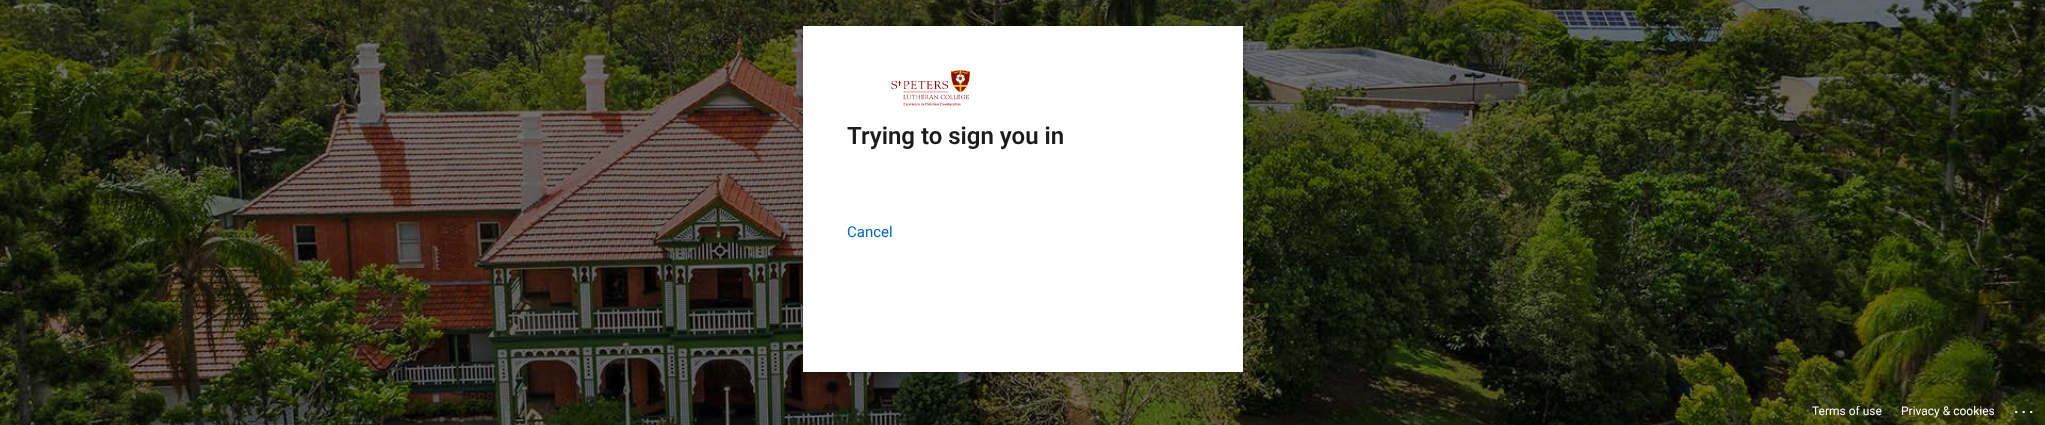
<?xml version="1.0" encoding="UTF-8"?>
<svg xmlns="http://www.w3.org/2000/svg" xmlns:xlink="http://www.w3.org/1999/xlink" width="2045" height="425">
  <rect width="100%" height="100%" fill="#ffffff" />
  <image x="0" y="0" width="2045" height="425" xlink:href="image1.png" />
  <rect x="803" y="28" width="440" height="346" fill="#000000" fill-opacity="0.2" filter="blur(3px)" />
  <rect x="803" y="26" width="440" height="346" fill="#ffffff" />
  <image x="891" y="70" width="79" height="36" xlink:href="image2.png" />
  <text x="847" y="144" style="font-family: Roboto; font-size: 24px; font-weight: 600; fill: #1b1b1b">Trying to sign you in</text>
  <text x="847" y="237" style="font-family: Roboto; font-size: 15px; fill: #0067b8">Cancel</text>
  <text x="1812" y="415" style="font-family: Roboto; font-size: 12px; fill: #ffffff">Terms of use</text>
  <text x="1901" y="415" style="font-family: Roboto; font-size: 12px; fill: #ffffff">Privacy &amp; cookies</text>
  <text x="2014" y="413" style="font-family: Roboto; font-size: 16px; font-weight: 600; letter-spacing: 3px; fill: #ffffff">...</text>
</svg>
